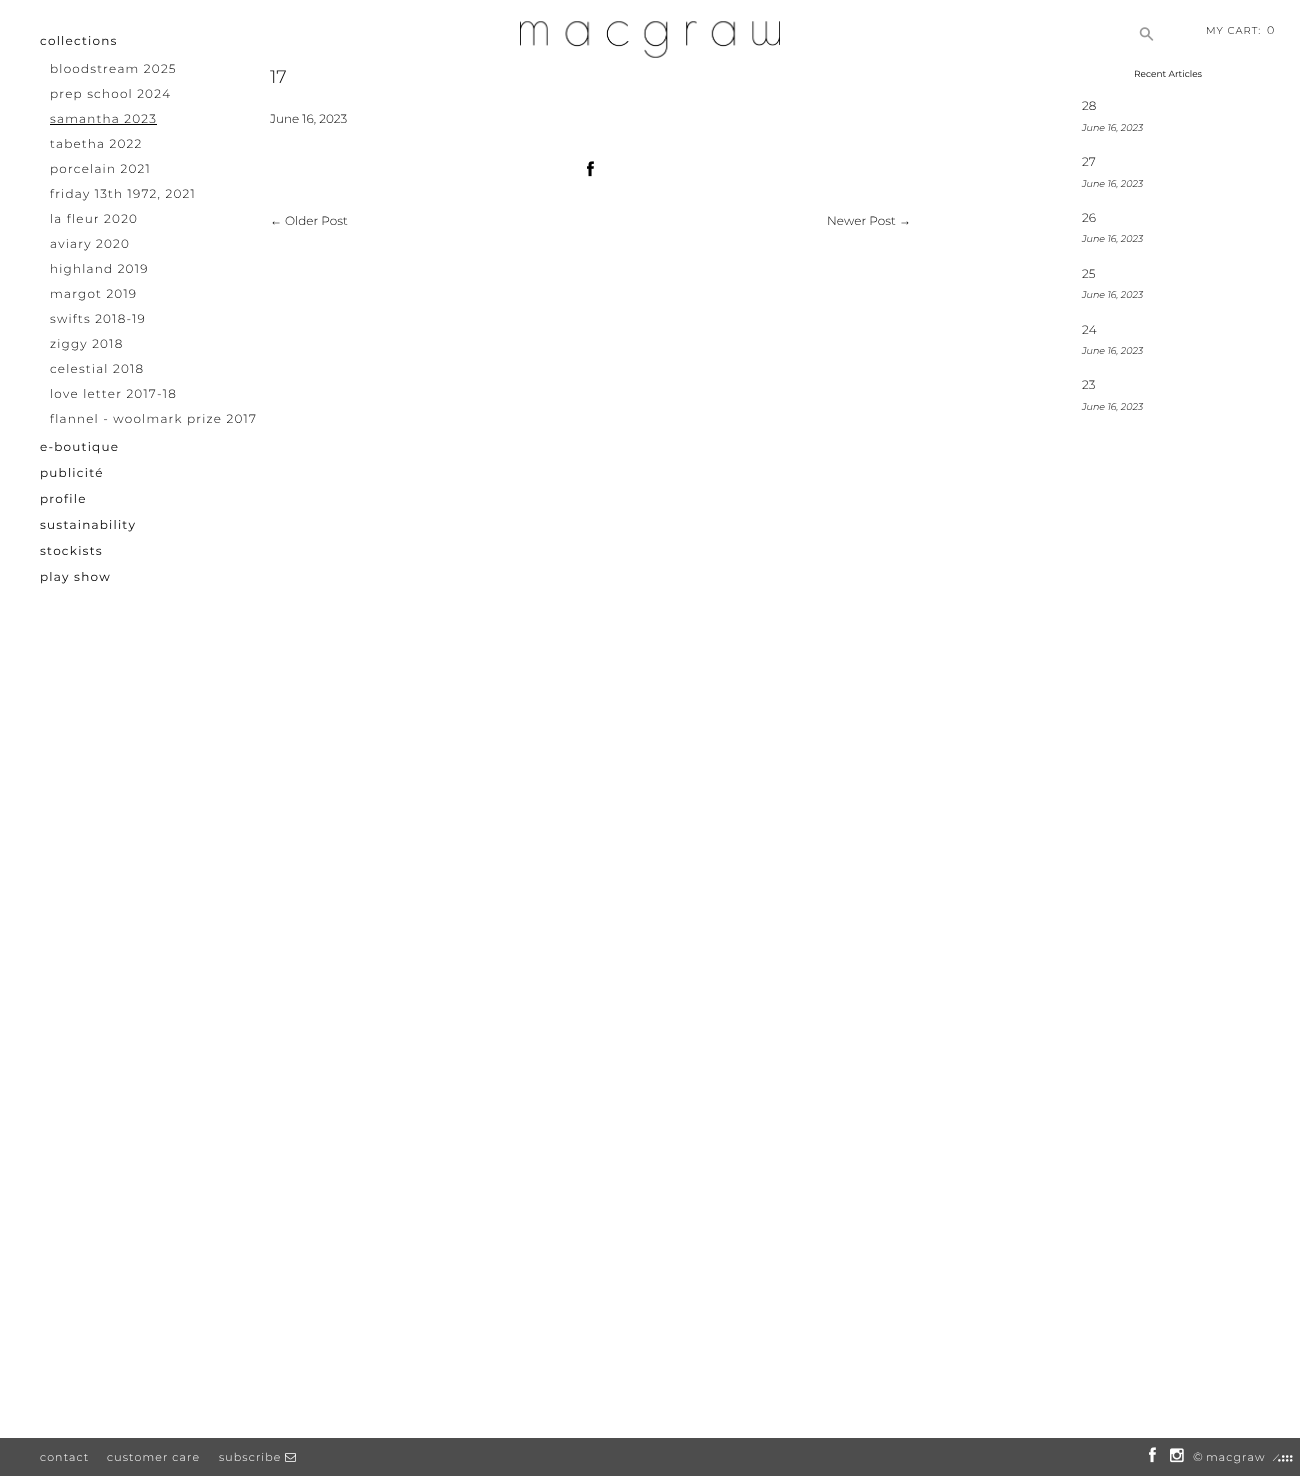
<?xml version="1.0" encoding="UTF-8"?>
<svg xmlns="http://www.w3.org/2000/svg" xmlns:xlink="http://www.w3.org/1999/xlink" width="1300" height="1476">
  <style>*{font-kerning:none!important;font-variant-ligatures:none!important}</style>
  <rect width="100%" height="100%" fill="#ffffff" />
  <image x="520" y="21" width="260" height="37" xlink:href="image1.png" />
  <image x="1139" y="27" width="15" height="14" xlink:href="image2.png" />
  <rect x="50" y="124" width="107" height="1" fill="#000000" />
  <image x="587" y="161" width="7" height="16" xlink:href="image3.png" />
  <rect y="1438" width="1300" height="38" fill="#4d4d4d" />
  <image x="285" y="1453" width="11" height="9" xlink:href="image4.png" />
  <image x="1149" y="1447" width="7" height="16" xlink:href="image5.png" />
  <image x="1170" y="1448" width="14" height="15" xlink:href="image6.png" />
  <text x="1206" y="34" style="font-family: Montserrat; font-size: 10px; font-weight: 300; letter-spacing: 1px; fill: #000000">MY CART:</text>
  <text x="1267" y="34" style="font-family: Montserrat; font-size: 11px; font-weight: 300; letter-spacing: 1px; fill: #000000">0</text>
  <text x="40" y="45" style="font-family: Montserrat; font-size: 12px; letter-spacing: 1.2px; fill: #000000">collections</text>
  <text x="50" y="73" style="font-family: Montserrat; font-size: 12px; font-weight: 300; letter-spacing: 1.2px; fill: #000000">bloodstream 2025</text>
  <text x="50" y="98" style="font-family: Montserrat; font-size: 12px; font-weight: 300; letter-spacing: 1.2px; fill: #000000">prep school 2024</text>
  <text x="50" y="123" style="font-family: Montserrat; font-size: 12px; font-weight: 300; letter-spacing: 1.2px; fill: #000000">samantha 2023</text>
  <text x="50" y="148" style="font-family: Montserrat; font-size: 12px; font-weight: 300; letter-spacing: 1.2px; fill: #000000">tabetha 2022</text>
  <text x="50" y="173" style="font-family: Montserrat; font-size: 12px; font-weight: 300; letter-spacing: 1.2px; fill: #000000">porcelain 2021</text>
  <text x="50" y="198" style="font-family: Montserrat; font-size: 12px; font-weight: 300; letter-spacing: 1.2px; fill: #000000">friday 13th 1972, 2021</text>
  <text x="50" y="223" style="font-family: Montserrat; font-size: 12px; font-weight: 300; letter-spacing: 1.2px; fill: #000000">la fleur 2020</text>
  <text x="50" y="248" style="font-family: Montserrat; font-size: 12px; font-weight: 300; letter-spacing: 1.2px; fill: #000000">aviary 2020</text>
  <text x="50" y="273" style="font-family: Montserrat; font-size: 12px; font-weight: 300; letter-spacing: 1.2px; fill: #000000">highland 2019</text>
  <text x="50" y="298" style="font-family: Montserrat; font-size: 12px; font-weight: 300; letter-spacing: 1.2px; fill: #000000">margot 2019</text>
  <text x="50" y="323" style="font-family: Montserrat; font-size: 12px; font-weight: 300; letter-spacing: 1.2px; fill: #000000">swifts 2018-19</text>
  <text x="50" y="348" style="font-family: Montserrat; font-size: 12px; font-weight: 300; letter-spacing: 1.2px; fill: #000000">ziggy 2018</text>
  <text x="50" y="373" style="font-family: Montserrat; font-size: 12px; font-weight: 300; letter-spacing: 1.2px; fill: #000000">celestial 2018</text>
  <text x="50" y="398" style="font-family: Montserrat; font-size: 12px; font-weight: 300; letter-spacing: 1.2px; fill: #000000">love letter 2017-18</text>
  <text x="50" y="423" style="font-family: Montserrat; font-size: 12px; font-weight: 300; letter-spacing: 1.2px; fill: #000000">flannel - woolmark prize 2017</text>
  <text x="40" y="451" style="font-family: Montserrat; font-size: 12px; letter-spacing: 1.2px; fill: #000000">e-boutique</text>
  <text x="40" y="477" style="font-family: Montserrat; font-size: 12px; letter-spacing: 1.2px; fill: #000000">publicité</text>
  <text x="40" y="503" style="font-family: Montserrat; font-size: 12px; letter-spacing: 1.2px; fill: #000000">profile</text>
  <text x="40" y="529" style="font-family: Montserrat; font-size: 12px; letter-spacing: 1.2px; fill: #000000">sustainability</text>
  <text x="40" y="555" style="font-family: Montserrat; font-size: 12px; letter-spacing: 1.2px; fill: #000000">stockists</text>
  <text x="40" y="581" style="font-family: Montserrat; font-size: 12px; letter-spacing: 1.2px; fill: #000000">play show</text>
  <text x="270" y="83" style="font-family: Montserrat; font-size: 18px; font-weight: 300; fill: #000000">17</text>
  <text x="270" y="123" style="font-family: Montserrat; font-size: 12px; font-weight: 300; fill: #000000">June 16, 2023</text>
  <text x="270" y="225" style="font-family: Liberation Sans; font-size: 12px; fill: #000000">←</text>
  <text x="285" y="225" style="font-family: Montserrat; font-size: 12px; font-weight: 300; fill: #000000">Older Post</text>
  <text x="827" y="225" style="font-family: Montserrat; font-size: 12px; font-weight: 300; fill: #000000">Newer Post</text>
  <text x="899" y="225" style="font-family: Liberation Sans; font-size: 12px; fill: #000000">→</text>
  <text x="1134" y="77" style="font-family: Montserrat; font-size: 9px; fill: #000000">Recent Articles</text>
  <text x="1082" y="110" style="font-family: Montserrat; font-size: 12px; font-weight: 300; fill: #000000">28</text>
  <text x="1082" y="131" style="font-family: Montserrat; font-size: 9.5px; font-weight: 300; font-style: italic; fill: #000000">June 16, 2023</text>
  <text x="1082" y="166" style="font-family: Montserrat; font-size: 12px; font-weight: 300; fill: #000000">27</text>
  <text x="1082" y="187" style="font-family: Montserrat; font-size: 9.5px; font-weight: 300; font-style: italic; fill: #000000">June 16, 2023</text>
  <text x="1082" y="222" style="font-family: Montserrat; font-size: 12px; font-weight: 300; fill: #000000">26</text>
  <text x="1082" y="242" style="font-family: Montserrat; font-size: 9.5px; font-weight: 300; font-style: italic; fill: #000000">June 16, 2023</text>
  <text x="1082" y="278" style="font-family: Montserrat; font-size: 12px; font-weight: 300; fill: #000000">25</text>
  <text x="1082" y="298" style="font-family: Montserrat; font-size: 9.5px; font-weight: 300; font-style: italic; fill: #000000">June 16, 2023</text>
  <text x="1082" y="334" style="font-family: Montserrat; font-size: 12px; font-weight: 300; fill: #000000">24</text>
  <text x="1082" y="354" style="font-family: Montserrat; font-size: 9.5px; font-weight: 300; font-style: italic; fill: #000000">June 16, 2023</text>
  <text x="1082" y="389" style="font-family: Montserrat; font-size: 12px; font-weight: 300; fill: #000000">23</text>
  <text x="1082" y="410" style="font-family: Montserrat; font-size: 9.5px; font-weight: 300; font-style: italic; fill: #000000">June 16, 2023</text>
  <text x="40" y="1461" style="font-family: Montserrat; font-size: 11px; font-weight: 300; letter-spacing: 1.1px; fill: #ffffff">contact</text>
  <text x="107" y="1461" style="font-family: Montserrat; font-size: 11px; font-weight: 300; letter-spacing: 1.1px; fill: #ffffff">customer care</text>
  <text x="219" y="1461" style="font-family: Montserrat; font-size: 11px; font-weight: 300; letter-spacing: 1.1px; fill: #ffffff">subscribe</text>
  <text x="1193" y="1461" style="font-family: Montserrat; font-size: 12px; font-weight: 300; fill: #ffffff">©</text>
  <text x="1206" y="1461" style="font-family: Montserrat; font-size: 11px; font-weight: 300; letter-spacing: 1.1px; fill: #ffffff">macgraw</text>
  <text x="1269" y="1465" style="font-family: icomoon; font-size: 16px; letter-spacing: 2px; fill: #ffffff">🎂</text>
</svg>
